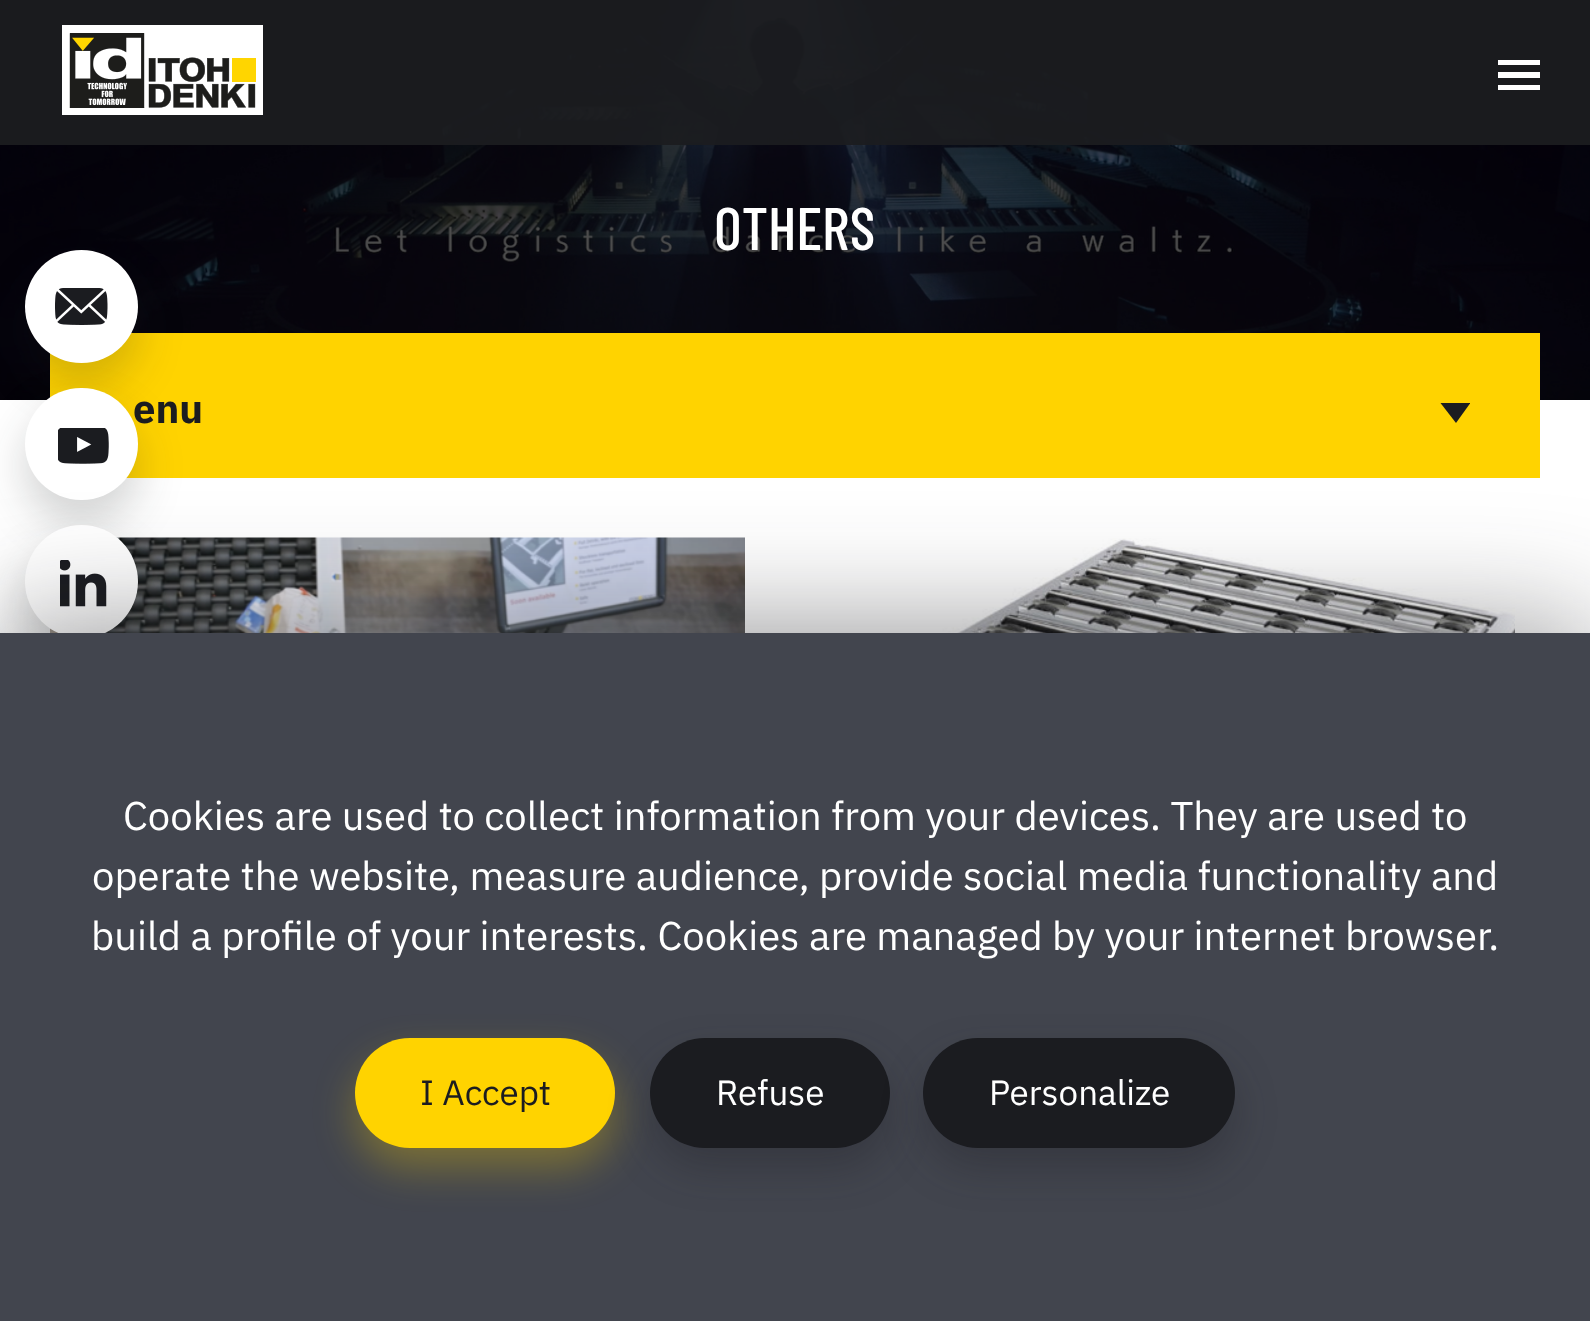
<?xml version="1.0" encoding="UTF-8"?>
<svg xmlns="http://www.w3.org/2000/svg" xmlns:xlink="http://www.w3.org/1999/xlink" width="1590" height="1321">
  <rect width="100%" height="100%" fill="#ffffff" />
  <image x="0" y="0" width="1590" height="400" xlink:href="image5.png" />
  <rect width="1590" height="145" fill="#1b1c20" fill-opacity="0.95" />
  <image x="62" y="25" width="201" height="90" xlink:href="image1.png" />
  <path d="M 1540 85 v 5 h -42 v -5 z m 0 -13 v 6 h -42 v -6 z m 0 -12 v 5 h -42 v -5 z" fill="#ffffff" fill-rule="evenodd" />
  <rect x="50" y="333" width="1490" height="145" fill="#ffd300" />
  <rect x="25" y="273" width="113" height="112" rx="56" fill="#1b1c20" fill-opacity="0.2" filter="blur(22.5px)" />
  <circle cx="81.5" cy="306.5" r="56.5" fill="#ffffff" />
  <image x="55" y="288" width="53" height="37" xlink:href="image2.png" />
  <image x="50" y="537" width="695" height="96" xlink:href="image6.png" />
  <rect x="25" y="410" width="113" height="113" rx="56.5" fill="#1b1c20" fill-opacity="0.2" filter="blur(22.5px)" />
  <path d="M 1456 423 l -15.5 -20 h 29.5 v 0.5 z" fill="#1b1c20" />
  <image x="820" y="538" width="695" height="95" xlink:href="image7.png" />
  <text x="714" y="250" style="font-family: Barlow Condensed; font-size: 60px; font-weight: 500; fill: #ffffff">OTHERS</text>
  <text x="133" y="423" style="font-family: IBM Plex Sans; font-size: 40px; font-weight: bold; fill: #1b1c20">enu</text>
  <rect x="25" y="388" width="113" height="112" rx="56" fill="#ffffff" />
  <rect x="25" y="548" width="113" height="112" rx="56" fill="#1b1c20" fill-opacity="0.2" filter="blur(22.5px)" />
  <circle cx="81.5" cy="581.5" r="56.5" fill="#ffffff" />
  <image x="60" y="560" width="47" height="47" xlink:href="image4.png" />
  <image x="58" y="428" width="51" height="36" xlink:href="image3.png" />
  <rect y="633" width="1590" height="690" fill="#1b1c20" fill-opacity="0.5" filter="blur(62.5px)" />
  <rect y="633" width="1590" height="688" fill="#42454e" />
  <text x="123" y="830" style="font-family: IBM Plex Sans; font-size: 40px; fill: #ffffff">Cookies are used to collect information from your devices. They are used to</text>
  <text x="92" y="890" style="font-family: IBM Plex Sans; font-size: 40px; fill: #ffffff">operate the website, measure audience, provide social media functionality and</text>
  <text x="91" y="950" style="font-family: IBM Plex Sans; font-size: 40px; fill: #ffffff">build a profile of your interests. Cookies are managed by your internet browser.</text>
  <rect x="355" y="1058" width="260" height="110" rx="55" fill="#ffd300" fill-opacity="0.3" filter="blur(20px)" />
  <rect x="355" y="1038" width="260" height="110" rx="55" fill="#ffd300" />
  <text x="420" y="1105" style="font-family: IBM Plex Sans; font-size: 35px; fill: #1b1c20">I Accept</text>
  <rect x="650" y="1058" width="240" height="110" rx="55" fill="#1b1c20" fill-opacity="0.3" filter="blur(20px)" />
  <rect x="650" y="1038" width="240" height="110" rx="55" fill="#1b1c20" />
  <text x="716" y="1105" style="font-family: IBM Plex Sans; font-size: 35px; fill: #ffffff">Refuse</text>
  <rect x="923" y="1058" width="312" height="110" rx="55" fill="#1b1c20" fill-opacity="0.3" filter="blur(20px)" />
  <rect x="923" y="1038" width="312" height="110" rx="55" fill="#1b1c20" />
  <text x="989" y="1105" style="font-family: IBM Plex Sans; font-size: 35px; fill: #ffffff">Personalize</text>
</svg>
